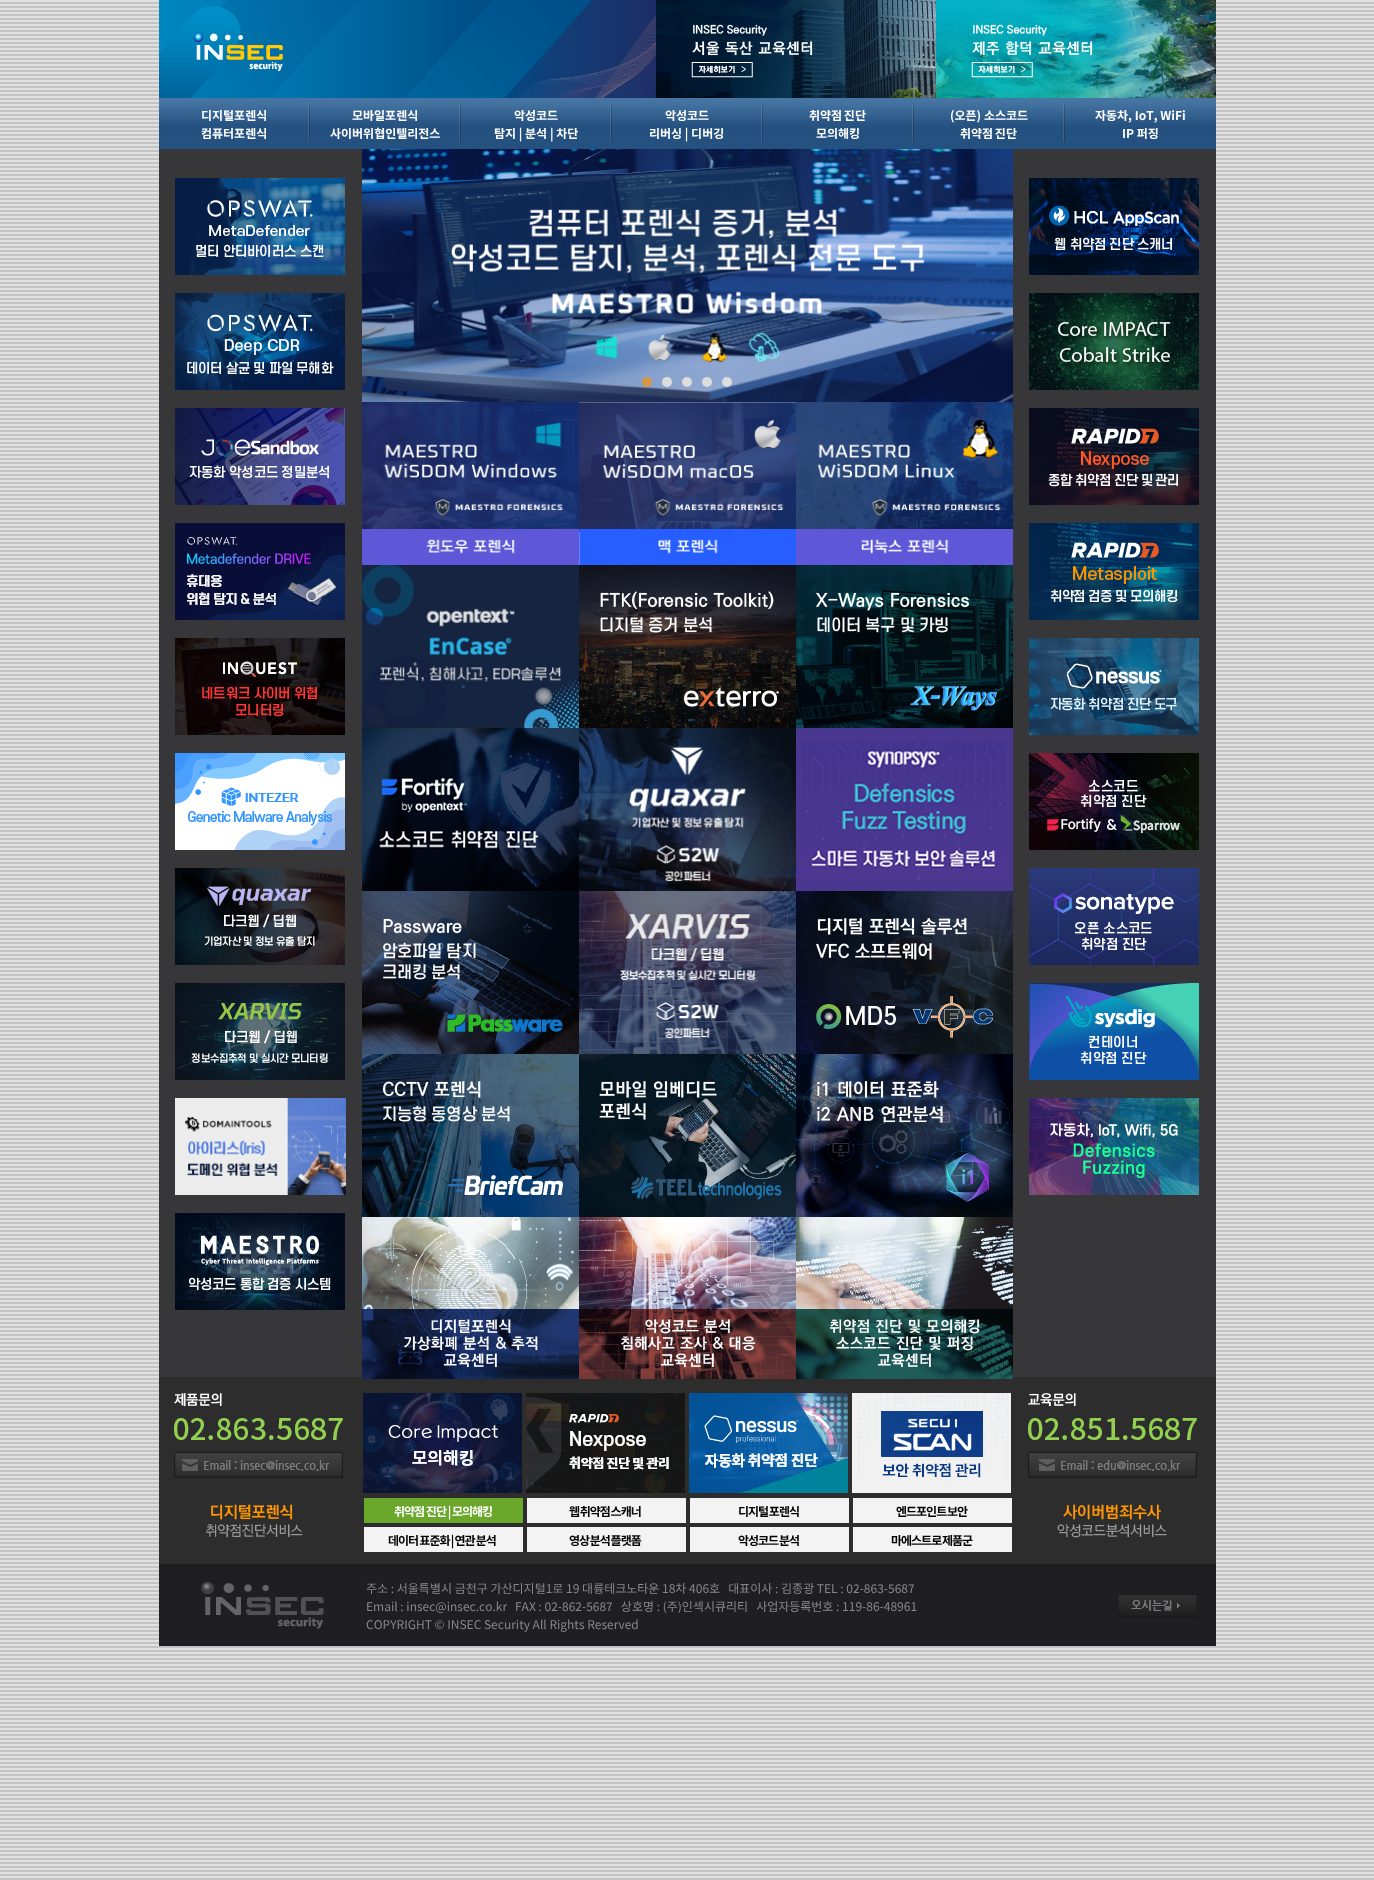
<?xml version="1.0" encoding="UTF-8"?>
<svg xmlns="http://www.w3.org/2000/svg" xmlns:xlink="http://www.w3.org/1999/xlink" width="1374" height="1880">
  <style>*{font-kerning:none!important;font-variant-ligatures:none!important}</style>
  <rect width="100%" height="100%" fill="#ffffff" />
  <image x="0" y="0" width="1374" height="1880" xlink:href="image1.png" />
  <image x="159" y="0" width="1057" height="98" xlink:href="image2.png" />
  <image x="159" y="98" width="1057" height="51" xlink:href="image3.png" />
  <image x="308" y="105" width="2" height="37" xlink:href="image4.png" />
  <image x="459" y="105" width="2" height="37" xlink:href="image4.png" />
  <image x="610" y="105" width="2" height="37" xlink:href="image4.png" />
  <image x="761" y="105" width="2" height="37" xlink:href="image4.png" />
  <image x="912" y="105" width="2" height="37" xlink:href="image4.png" />
  <image x="1063" y="105" width="2" height="37" xlink:href="image4.png" />
  <image x="159" y="149" width="1057" height="1228" xlink:href="image5.png" />
  <image x="175" y="178" width="170" height="97" xlink:href="image6.png" />
  <image x="175" y="293" width="170" height="97" xlink:href="image7.png" />
  <image x="175" y="408" width="170" height="97" xlink:href="image8.png" />
  <image x="175" y="523" width="170" height="97" xlink:href="image9.png" />
  <image x="175" y="638" width="170" height="97" xlink:href="image10.png" />
  <image x="175" y="753" width="170" height="97" xlink:href="image11.png" />
  <image x="175" y="868" width="170" height="97" xlink:href="image12.png" />
  <image x="175" y="983" width="170" height="97" xlink:href="image13.png" />
  <image x="175" y="1098" width="171" height="97" xlink:href="image14.png" />
  <image x="175" y="1213" width="170" height="97" xlink:href="image15.png" />
  <image x="159" y="1377" width="203" height="187" xlink:href="image16.png" />
  <image x="362" y="149" width="651" height="253" xlink:href="image17.png" />
  <circle cx="647" cy="382" r="5" fill="#d69746" />
  <circle cx="667" cy="382" r="5" fill="#dddddd" />
  <circle cx="687" cy="382" r="5" fill="#dddddd" />
  <circle cx="707" cy="382" r="5" fill="#dddddd" />
  <circle cx="727" cy="382" r="5" fill="#dddddd" />
  <image x="362" y="402" width="217" height="163" xlink:href="image18.png" />
  <image x="579" y="402" width="217" height="163" xlink:href="image19.png" />
  <image x="796" y="402" width="217" height="163" xlink:href="image20.png" />
  <image x="362" y="565" width="217" height="163" xlink:href="image21.png" />
  <image x="579" y="565" width="217" height="163" xlink:href="image22.png" />
  <image x="796" y="565" width="217" height="163" xlink:href="image23.png" />
  <image x="362" y="728" width="217" height="163" xlink:href="image24.png" />
  <image x="579" y="728" width="217" height="163" xlink:href="image25.png" />
  <image x="796" y="728" width="217" height="163" xlink:href="image26.png" />
  <image x="362" y="891" width="217" height="163" xlink:href="image27.png" />
  <image x="579" y="891" width="217" height="163" xlink:href="image28.png" />
  <image x="796" y="891" width="217" height="163" xlink:href="image29.png" />
  <image x="362" y="1054" width="217" height="163" xlink:href="image30.png" />
  <image x="579" y="1054" width="217" height="163" xlink:href="image31.png" />
  <image x="796" y="1054" width="217" height="163" xlink:href="image32.png" />
  <image x="362" y="1217" width="217" height="162" xlink:href="image33.png" />
  <image x="579" y="1217" width="217" height="162" xlink:href="image34.png" />
  <image x="796" y="1217" width="217" height="162" xlink:href="image35.png" />
  <rect x="362" y="1379" width="651" height="185" fill="#2d2d2d" />
  <image x="363" y="1393" width="159" height="100" xlink:href="image36.png" />
  <image x="526" y="1393" width="159" height="100" xlink:href="image37.png" />
  <image x="689" y="1393" width="159" height="100" xlink:href="image38.png" />
  <image x="852" y="1393" width="159" height="100" xlink:href="image39.png" />
  <rect x="364" y="1498" width="159" height="25" fill="#6ba72b" />
  <rect x="527" y="1498" width="159" height="25" fill="#f3f3f3" />
  <rect x="690" y="1498" width="159" height="25" fill="#f3f3f3" />
  <rect x="853" y="1498" width="159" height="25" fill="#f3f3f3" />
  <rect x="364" y="1527" width="159" height="25" fill="#f3f3f3" />
  <rect x="527" y="1527" width="159" height="25" fill="#f3f3f3" />
  <rect x="690" y="1527" width="159" height="25" fill="#f3f3f3" />
  <rect x="853" y="1527" width="159" height="25" fill="#f3f3f3" />
  <image x="1029" y="178" width="170" height="97" xlink:href="image40.png" />
  <image x="1029" y="293" width="170" height="97" xlink:href="image41.png" />
  <image x="1029" y="408" width="170" height="97" xlink:href="image42.png" />
  <image x="1029" y="523" width="170" height="97" xlink:href="image43.png" />
  <image x="1029" y="638" width="170" height="97" xlink:href="image44.png" />
  <image x="1029" y="753" width="170" height="97" xlink:href="image45.png" />
  <image x="1029" y="868" width="170" height="97" xlink:href="image46.png" />
  <image x="1029" y="983" width="170" height="97" xlink:href="image47.png" />
  <image x="1029" y="1098" width="170" height="97" xlink:href="image48.png" />
  <image x="1013" y="1377" width="203" height="187" xlink:href="image49.png" />
  <rect x="159" y="1564" width="1057" height="82" fill="#1f1f21" />
  <image x="201" y="1582" width="123" height="47" xlink:href="image50.png" />
  <image x="1117" y="1594" width="81" height="24" xlink:href="image51.png" />
  <text x="201" y="120" style="font-family: Noto Sans KR; font-size: 12px; font-weight: bold; fill: #ffffff">디지털포렌식</text>
  <text x="201" y="138" style="font-family: Noto Sans KR; font-size: 12px; font-weight: bold; fill: #ffffff">컴퓨터포렌식</text>
  <text x="352" y="120" style="font-family: Noto Sans KR; font-size: 12px; font-weight: bold; fill: #ffffff">모바일포렌식</text>
  <text x="330" y="138" style="font-family: Noto Sans KR; font-size: 12px; font-weight: bold; fill: #ffffff">사이버위협인텔리전스</text>
  <text x="514" y="120" style="font-family: Noto Sans KR; font-size: 12px; font-weight: bold; fill: #ffffff">악성코드</text>
  <text x="494" y="138" style="font-family: Noto Sans KR; font-size: 12px; font-weight: bold; fill: #ffffff">탐지 | 분석 | 차단</text>
  <text x="665" y="120" style="font-family: Noto Sans KR; font-size: 12px; font-weight: bold; fill: #ffffff">악성코드</text>
  <text x="649" y="138" style="font-family: Noto Sans KR; font-size: 12px; font-weight: bold; fill: #ffffff">리버싱 | 디버깅</text>
  <text x="809" y="120" word-spacing="-1" style="font-family: Noto Sans KR; font-size: 12px; font-weight: bold; fill: #ffffff">취약점 진단</text>
  <text x="816" y="138" style="font-family: Noto Sans KR; font-size: 12px; font-weight: bold; fill: #ffffff">모의해킹</text>
  <text x="950" y="120" style="font-family: Noto Sans KR; font-size: 12px; font-weight: bold; fill: #ffffff">(오픈) 소스코드</text>
  <text x="960" y="138" word-spacing="-1" style="font-family: Noto Sans KR; font-size: 12px; font-weight: bold; fill: #ffffff">취약점 진단</text>
  <text x="1095" y="120" style="font-family: Noto Sans KR; font-size: 12px; font-weight: bold; fill: #ffffff">자동차, IoT, WiFi</text>
  <text x="1122" y="138" style="font-family: Noto Sans KR; font-size: 12px; font-weight: bold; fill: #ffffff">IP 퍼징</text>
  <text x="394" y="1516" style="font-family: Noto Sans KR; font-size: 12px; font-weight: bold; letter-spacing: -1px; fill: #ffffff">취약점 진단 | 모의해킹</text>
  <text x="569" y="1516" word-spacing="-1" style="font-family: Noto Sans KR; font-size: 12px; font-weight: bold; letter-spacing: -1px; fill: #000000">웹 취약점 스캐너</text>
  <text x="738" y="1516" word-spacing="-1" style="font-family: Noto Sans KR; font-size: 12px; font-weight: bold; letter-spacing: -1px; fill: #000000">디지털 포렌식</text>
  <text x="896" y="1516" word-spacing="-1" style="font-family: Noto Sans KR; font-size: 12px; font-weight: bold; letter-spacing: -1px; fill: #000000">엔드포인트 보안</text>
  <text x="388" y="1545" word-spacing="-0.5" style="font-family: Noto Sans KR; font-size: 12px; font-weight: bold; letter-spacing: -1px; fill: #000000">데이터 표준화 | 연관 분석</text>
  <text x="569" y="1545" word-spacing="-1" style="font-family: Noto Sans KR; font-size: 12px; font-weight: bold; letter-spacing: -1px; fill: #000000">영상 분석 플랫폼</text>
  <text x="738" y="1545" word-spacing="-1" style="font-family: Noto Sans KR; font-size: 12px; font-weight: bold; letter-spacing: -1px; fill: #000000">악성코드 분석</text>
  <text x="891" y="1545" word-spacing="-1" style="font-family: Noto Sans KR; font-size: 12px; font-weight: bold; letter-spacing: -1px; fill: #000000">마에스트로 제품군</text>
  <text x="366" y="1593" style="font-family: Noto Sans KR; font-size: 12px; fill: #888888" xml:space="preserve">주소 : 서울특별시 금천구 가산디지털1로 19 대륭테크노타운 18차 406호   대표이사 : 김종광 TEL : 02-863-5687</text>
  <text x="366" y="1611" style="font-family: Noto Sans KR; font-size: 12px; fill: #888888">Email : insec@insec.co.kr</text>
  <text x="515" y="1611" style="font-family: Noto Sans KR; font-size: 12px; fill: #888888" xml:space="preserve">FAX : 02-862-5687   상호명 : (주)인섹시큐리티   사업자등록번호 : 119-86-48961</text>
  <text x="366" y="1629" style="font-family: Noto Sans KR; font-size: 12px; fill: #888888">COPYRIGHT © INSEC Security All Rights Reserved</text>
</svg>
